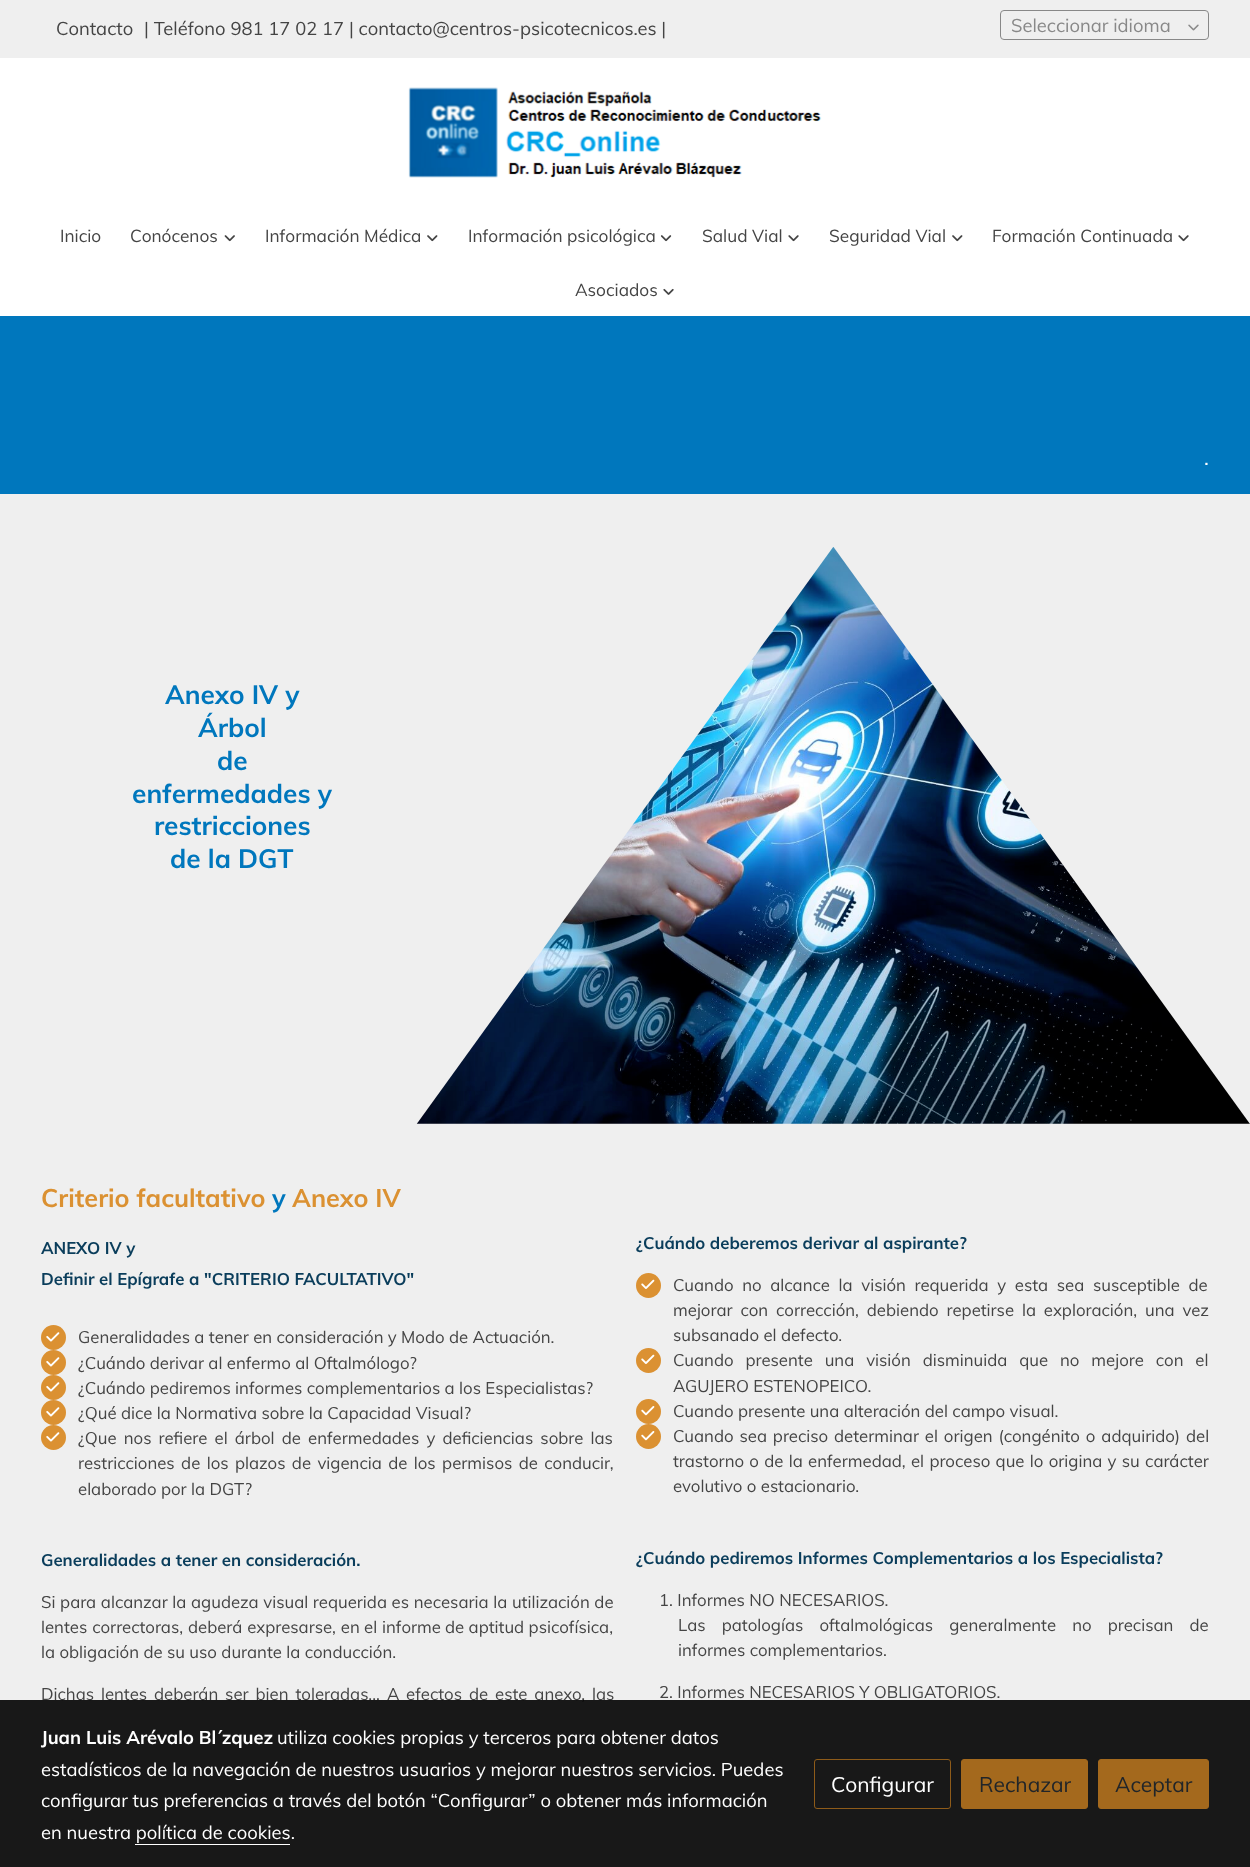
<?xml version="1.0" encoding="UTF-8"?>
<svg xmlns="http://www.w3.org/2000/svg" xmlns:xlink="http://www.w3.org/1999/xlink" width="1250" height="1867">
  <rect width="100%" height="100%" fill="#ffffff" />
  <rect width="1250" height="58" fill="#efefef" />
  <rect x="1000.5" y="10.5" width="208" height="29" rx="3.5" fill="none" stroke="#888888" />
  <image x="1188" y="24" width="11" height="7" xlink:href="image1.png" />
  <image x="408" y="87" width="414" height="91" xlink:href="image2.png" />
  <image x="224" y="235" width="11" height="7" xlink:href="image3.png" />
  <image x="427" y="235" width="11" height="7" xlink:href="image4.png" />
  <image x="660" y="235" width="12" height="7" xlink:href="image5.png" />
  <image x="788" y="235" width="11" height="7" xlink:href="image6.png" />
  <image x="952" y="235" width="11" height="7" xlink:href="image4.png" />
  <image x="1178" y="235" width="11" height="7" xlink:href="image6.png" />
  <image x="663" y="288" width="11" height="7" xlink:href="image7.png" />
  <rect y="316" width="1250" height="178" fill="#0077bd" />
  <rect y="494" width="1250" height="1373" fill="#efefef" />
  <image x="416" y="547" width="834" height="577" xlink:href="image8.png" />
  <circle cx="53.5" cy="1337.5" r="12.5" fill="#db9132" />
  <image x="46" y="1332" width="14" height="10" xlink:href="image9.png" />
  <circle cx="53.5" cy="1362.5" r="12.5" fill="#db9132" />
  <image x="46" y="1357" width="14" height="10" xlink:href="image9.png" />
  <circle cx="53.5" cy="1387.5" r="12.5" fill="#db9132" />
  <image x="46" y="1382" width="14" height="10" xlink:href="image9.png" />
  <circle cx="53.5" cy="1412.5" r="12.5" fill="#db9132" />
  <image x="46" y="1407" width="14" height="10" xlink:href="image9.png" />
  <circle cx="53.5" cy="1437.5" r="12.5" fill="#db9132" />
  <image x="46" y="1432" width="14" height="10" xlink:href="image9.png" />
  <circle cx="648.5" cy="1285.5" r="12.5" fill="#db9132" />
  <image x="641" y="1279" width="14" height="10" xlink:href="image10.png" />
  <circle cx="648.5" cy="1360.5" r="12.5" fill="#db9132" />
  <image x="641" y="1354" width="14" height="10" xlink:href="image10.png" />
  <circle cx="648.5" cy="1411.5" r="12.5" fill="#db9132" />
  <image x="641" y="1406" width="14" height="10" xlink:href="image11.png" />
  <circle cx="648.5" cy="1436.5" r="12.5" fill="#db9132" />
  <image x="641" y="1431" width="14" height="10" xlink:href="image11.png" />
  <text x="56" y="35" style="font-family: Muli; font-size: 18.4px; fill: #444444">Contacto</text>
  <text x="144" y="35" style="font-family: Muli; font-size: 18.4px; fill: #444444">| Teléfono 981 17 02 17 | contacto@centros-psicotecnicos.es |</text>
  <text x="1011" y="32" style="font-family: Muli; font-size: 18.4px; fill: #888888">Seleccionar idioma</text>
  <text x="60" y="242" style="font-family: Muli; font-size: 17.25px; fill: #444444">Inicio</text>
  <text x="130" y="242" style="font-family: Muli; font-size: 17.25px; fill: #444444">Conócenos</text>
  <text x="265" y="242" style="font-family: Muli; font-size: 17.25px; fill: #444444">Información Médica</text>
  <text x="468" y="242" style="font-family: Muli; font-size: 17.25px; fill: #444444">Información psicológica</text>
  <text x="702" y="242" style="font-family: Muli; font-size: 17.25px; fill: #444444">Salud Vial</text>
  <text x="829" y="242" style="font-family: Muli; font-size: 17.25px; fill: #444444">Seguridad Vial</text>
  <text x="992" y="242" style="font-family: Muli; font-size: 17.25px; fill: #444444">Formación Continuada</text>
  <text x="575" y="296" style="font-family: Muli; font-size: 17.25px; fill: #444444">Asociados</text>
  <text x="1204" y="465" style="font-family: Muli; font-size: 21px; fill: #ffffff">.</text>
  <text x="165" y="704" style="font-family: Muli; font-size: 26.25px; font-weight: bold; fill: #0077bd">Anexo IV y</text>
  <text x="198" y="737" style="font-family: Muli; font-size: 26.25px; font-weight: bold; fill: #0077bd">Árbol</text>
  <text x="217" y="770" style="font-family: Muli; font-size: 26.25px; font-weight: bold; fill: #0077bd">de</text>
  <text x="132" y="803" style="font-family: Muli; font-size: 26.25px; font-weight: bold; fill: #0077bd">enfermedades y</text>
  <text x="154" y="835" style="font-family: Muli; font-size: 26.25px; font-weight: bold; fill: #0077bd">restricciones</text>
  <text x="170" y="868" style="font-family: Muli; font-size: 26.25px; font-weight: bold; fill: #0077bd">de la DGT</text>
  <text x="41" y="1207" style="font-family: Muli; font-size: 25.25px; font-weight: bold; fill: #db9132">Criterio facultativo</text>
  <text x="272" y="1207" style="font-family: Muli; font-size: 25.25px; font-weight: bold; fill: #0077bd">y</text>
  <text x="292" y="1207" style="font-family: Muli; font-size: 25.25px; font-weight: bold; fill: #db9132">Anexo IV</text>
  <text x="636" y="1249" style="font-family: Muli; font-size: 16.8px; font-weight: bold; fill: #0a3d5b">¿Cuándo deberemos derivar al aspirante?</text>
  <text x="78" y="1343" style="font-family: Muli; font-size: 16.8px; fill: #444444">Generalidades a tener en consideración y Modo de Actuación.</text>
  <text x="78" y="1369" style="font-family: Muli; font-size: 16.8px; fill: #444444">¿Cuándo derivar al enfermo al Oftalmólogo?</text>
  <text x="78" y="1394" style="font-family: Muli; font-size: 16.8px; fill: #444444">¿Cuándo pediremos informes complementarios a los Especialistas?</text>
  <text x="78" y="1419" style="font-family: Muli; font-size: 16.8px; fill: #444444">¿Qué dice la Normativa sobre la Capacidad Visual?</text>
  <text x="78" y="1444" word-spacing="2.75" style="font-family: Muli; font-size: 16.8px; fill: #444444">¿Que nos refiere el árbol de enfermedades y deficiencias sobre las</text>
  <text x="78" y="1469" word-spacing="2" style="font-family: Muli; font-size: 16.8px; fill: #444444">restricciones de los plazos de vigencia de los permisos de conducir,</text>
  <text x="78" y="1495" style="font-family: Muli; font-size: 16.8px; fill: #444444">elaborado por la DGT?</text>
  <text x="673" y="1291" word-spacing="4.25" style="font-family: Muli; font-size: 16.8px; fill: #444444">Cuando no alcance la visión requerida y esta sea susceptible de</text>
  <text x="673" y="1316" word-spacing="3.5" style="font-family: Muli; font-size: 16.8px; fill: #444444">mejorar con corrección, debiendo repetirse la exploración, una vez</text>
  <text x="673" y="1341" style="font-family: Muli; font-size: 16.8px; fill: #444444">subsanado el defecto.</text>
  <text x="673" y="1366" word-spacing="7.5" style="font-family: Muli; font-size: 16.8px; fill: #444444">Cuando presente una visión disminuida que no mejore con el</text>
  <text x="673" y="1392" style="font-family: Muli; font-size: 16.8px; fill: #444444">AGUJERO ESTENOPEICO.</text>
  <text x="673" y="1417" style="font-family: Muli; font-size: 16.8px; fill: #444444">Cuando presente una alteración del campo visual.</text>
  <text x="673" y="1442" word-spacing="1.5" style="font-family: Muli; font-size: 16.8px; fill: #444444">Cuando sea preciso determinar el origen (congénito o adquirido) del</text>
  <text x="673" y="1467" word-spacing="0.9" style="font-family: Muli; font-size: 16.8px; fill: #444444">trastorno o de la enfermedad, el proceso que lo origina y su carácter</text>
  <text x="673" y="1492" style="font-family: Muli; font-size: 16.8px; fill: #444444">evolutivo o estacionario.</text>
  <text x="41" y="1566" style="font-family: Muli; font-size: 16.8px; font-weight: bold; fill: #0a3d5b">Generalidades a tener en consideración.</text>
  <text x="636" y="1564" style="font-family: Muli; font-size: 16.8px; font-weight: bold; fill: #0a3d5b">¿Cuándo pediremos Informes Complementarios a los Especialista?</text>
  <text x="41" y="1608" word-spacing="0.25" style="font-family: Muli; font-size: 16.8px; fill: #444444">Si para alcanzar la agudeza visual requerida es necesaria la utilización de</text>
  <text x="41" y="1633" word-spacing="0.5" style="font-family: Muli; font-size: 16.8px; fill: #444444">lentes correctoras, deberá expresarse, en</text>
  <text x="364" y="1633" style="font-family: Muli; font-size: 16.8px; fill: #444444">el</text>
  <text x="382" y="1633" style="font-family: Muli; font-size: 16.8px; fill: #444444">informe</text>
  <text x="445" y="1633" style="font-family: Muli; font-size: 16.8px; fill: #444444">de aptitud psicofísica,</text>
  <text x="41" y="1658" style="font-family: Muli; font-size: 16.8px; fill: #444444">la obligación de su uso durante la conducción.</text>
  <text x="659" y="1606" style="font-family: Muli; font-size: 16.8px; fill: #444444">1. Informes NO NECESARIOS.</text>
  <text x="678" y="1631" word-spacing="11.75" style="font-family: Muli; font-size: 16.8px; fill: #444444">Las patologías oftalmológicas generalmente no precisan de</text>
  <text x="678" y="1656" style="font-family: Muli; font-size: 16.8px; fill: #444444">informes complementarios.</text>
  <text x="659" y="1698" style="font-family: Muli; font-size: 16.8px; fill: #444444">2. Informes NECESARIOS Y OBLIGATORIOS.</text>
  <text x="41" y="1700" word-spacing="2.5" style="font-family: Muli; font-size: 16.8px; fill: #444444">Dichas lentes deberán ser bien toleradas... A efectos</text>
  <text x="469" y="1700" word-spacing="2.5" style="font-family: Muli; font-size: 16.8px; fill: #444444">de este anexo,</text>
  <text x="592" y="1700" style="font-family: Muli; font-size: 16.8px; fill: #444444">las</text>
  <text x="41" y="1254" style="font-family: Muli; font-size: 16.8px; font-weight: bold; fill: #0a3d5b">ANEXO IV y</text>
  <text x="41" y="1285" style="font-family: Muli; font-size: 16.8px; font-weight: bold; fill: #0a3d5b">Definir el Epígrafe a "CRITERIO FACULTATIVO"</text>
  <rect y="1700" width="1250" height="167" fill="#000000" fill-opacity="0.9" />
  <text x="41" y="1744" style="font-family: Muli; font-size: 18.4px; font-weight: bold; fill: #ffffff">Juan Luis Arévalo Bl´zquez</text>
  <text x="277" y="1744" style="font-family: Muli; font-size: 18.4px; fill: #ffffff">utiliza cookies propias y terceros para obtener datos</text>
  <text x="41" y="1776" style="font-family: Muli; font-size: 18.4px; fill: #ffffff">estadísticos de la navegación de nuestros usuarios y mejorar nuestros servicios. Puedes</text>
  <text x="41" y="1807" style="font-family: Muli; font-size: 18.4px; fill: #ffffff">configurar tus preferencias a través del botón “Configurar” o obtener más información</text>
  <text x="41" y="1839" style="font-family: Muli; font-size: 18.4px; fill: #ffffff">en nuestra política de cookies.</text>
  <rect x="135" y="1844" width="155" height="1" fill="#ffffff" />
  <rect x="814.5" y="1759.5" width="136" height="49" rx="2.5" fill="none" stroke="#8e5b19" />
  <text x="831" y="1792" style="font-family: Muli; font-size: 21px; fill: #ffffff">Configurar</text>
  <rect x="961.5" y="1759.5" width="126" height="49" rx="2.5" fill="#a4691d" stroke="#a4691d" />
  <text x="979" y="1792" style="font-family: Muli; font-size: 21px; fill: #212529">Rechazar</text>
  <rect x="1098.5" y="1759.5" width="110" height="49" rx="2.5" fill="#a4691d" stroke="#a4691d" />
  <text x="1115" y="1792" style="font-family: Muli; font-size: 21px; fill: #212529">Aceptar</text>
</svg>
